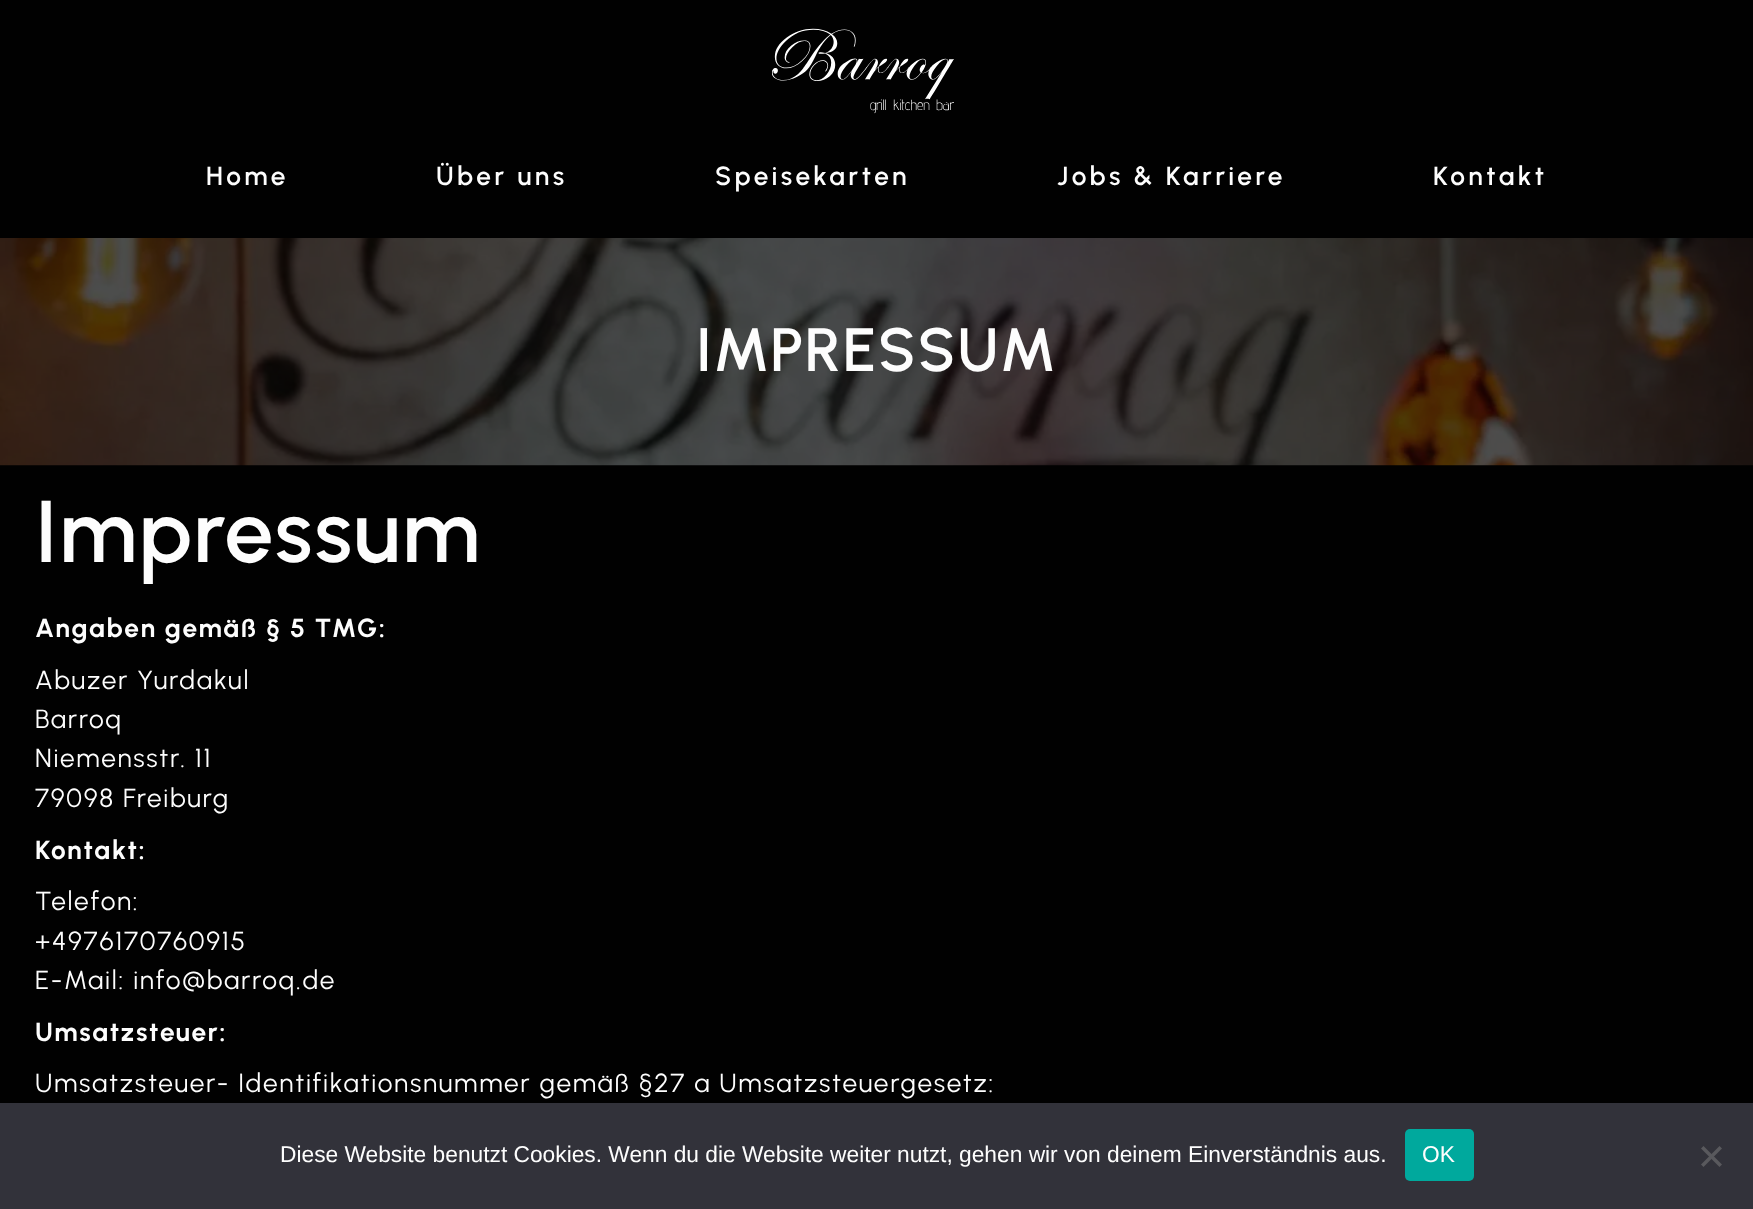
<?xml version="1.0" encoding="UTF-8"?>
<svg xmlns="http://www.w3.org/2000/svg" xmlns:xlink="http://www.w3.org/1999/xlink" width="1753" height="1209">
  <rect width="100%" height="100%" fill="#010101" />
  <image x="772" y="28" width="182" height="86" xlink:href="image1.png" />
  <image x="0" y="238" width="1753" height="228" xlink:href="image2.png" />
  <rect y="1103" width="1753" height="106" fill="#32323a" />
  <rect x="1405" y="1129" width="69" height="52" rx="5" fill="#00a99d" />
  <path d="M 1719.5 1146 l 2.5 2.5 l -18.5 18.5 l -2.5 -2.5 z" fill="#59595d" />
  <path d="M 1701 1148.5 l 2.5 -2.5 l 18.5 18.5 l -2.5 2.5 z" fill="#59595d" />
  <text x="206" y="185" style="font-family: Urbanist; font-size: 26.25px; font-weight: 600; letter-spacing: 3.5px; fill: #fdfdfd">Home</text>
  <text x="436" y="185" style="font-family: Urbanist; font-size: 26.25px; font-weight: 600; letter-spacing: 3.5px; fill: #fdfdfd">Über uns</text>
  <text x="715" y="185" style="font-family: Urbanist; font-size: 26.25px; font-weight: 600; letter-spacing: 3.5px; fill: #fdfdfd">Speisekarten</text>
  <text x="1057" y="185" style="font-family: Urbanist; font-size: 26.25px; font-weight: 600; letter-spacing: 3.5px; fill: #fdfdfd">Jobs &amp; Karriere</text>
  <text x="1433" y="185" style="font-family: Urbanist; font-size: 26.25px; font-weight: 600; letter-spacing: 3.5px; fill: #fdfdfd">Kontakt</text>
  <text x="696" y="371" style="font-family: Urbanist; font-size: 61.25px; font-weight: 600; letter-spacing: 1.75px; fill: #fdfdfd">IMPRESSUM</text>
  <text x="35" y="562" style="font-family: Urbanist; font-size: 87.5px; font-weight: 600; letter-spacing: 1.75px; fill: #fdfdfd">Impressum</text>
  <text x="35" y="637" style="font-family: Urbanist; font-size: 26.25px; font-weight: bold; letter-spacing: 1.75px; fill: #fdfdfd">Angaben gemäß § 5 TMG:</text>
  <text x="35" y="689" style="font-family: Urbanist; font-size: 26.25px; letter-spacing: 1.75px; fill: #fdfdfd">Abuzer Yurdakul</text>
  <text x="35" y="728" style="font-family: Urbanist; font-size: 26.25px; letter-spacing: 1.75px; fill: #fdfdfd">Barroq</text>
  <text x="35" y="767" style="font-family: Urbanist; font-size: 26.25px; letter-spacing: 1.75px; fill: #fdfdfd">Niemensstr. 11</text>
  <text x="35" y="807" style="font-family: Urbanist; font-size: 26.25px; letter-spacing: 1.75px; fill: #fdfdfd">79098 Freiburg</text>
  <text x="35" y="859" style="font-family: Urbanist; font-size: 26.25px; font-weight: bold; letter-spacing: 1.75px; fill: #fdfdfd">Kontakt:</text>
  <text x="35" y="910" style="font-family: Urbanist; font-size: 26.25px; letter-spacing: 1.75px; fill: #fdfdfd">Telefon:</text>
  <text x="35" y="950" style="font-family: Urbanist; font-size: 26.25px; letter-spacing: 1.75px; fill: #fdfdfd">+4976170760915</text>
  <text x="35" y="989" style="font-family: Urbanist; font-size: 26.25px; letter-spacing: 1.75px; fill: #fdfdfd">E-Mail: info@barroq.de</text>
  <text x="35" y="1041" style="font-family: Urbanist; font-size: 26.25px; font-weight: bold; letter-spacing: 1.75px; fill: #fdfdfd">Umsatzsteuer:</text>
  <text x="35" y="1092" style="font-family: Urbanist; font-size: 26.25px; letter-spacing: 1.75px; fill: #fdfdfd">Umsatzsteuer- Identifikationsnummer gemäß §27 a Umsatzsteuergesetz:</text>
  <text x="280" y="1162" style="font-family: Liberation Sans; font-size: 22.75px; fill: #fdfdfd">Diese Website benutzt Cookies. Wenn du die Website weiter nutzt, gehen wir von deinem Einverständnis aus.</text>
  <text x="1422" y="1162" style="font-family: Liberation Sans; font-size: 22.75px; fill: #fdfdfd">OK</text>
</svg>
